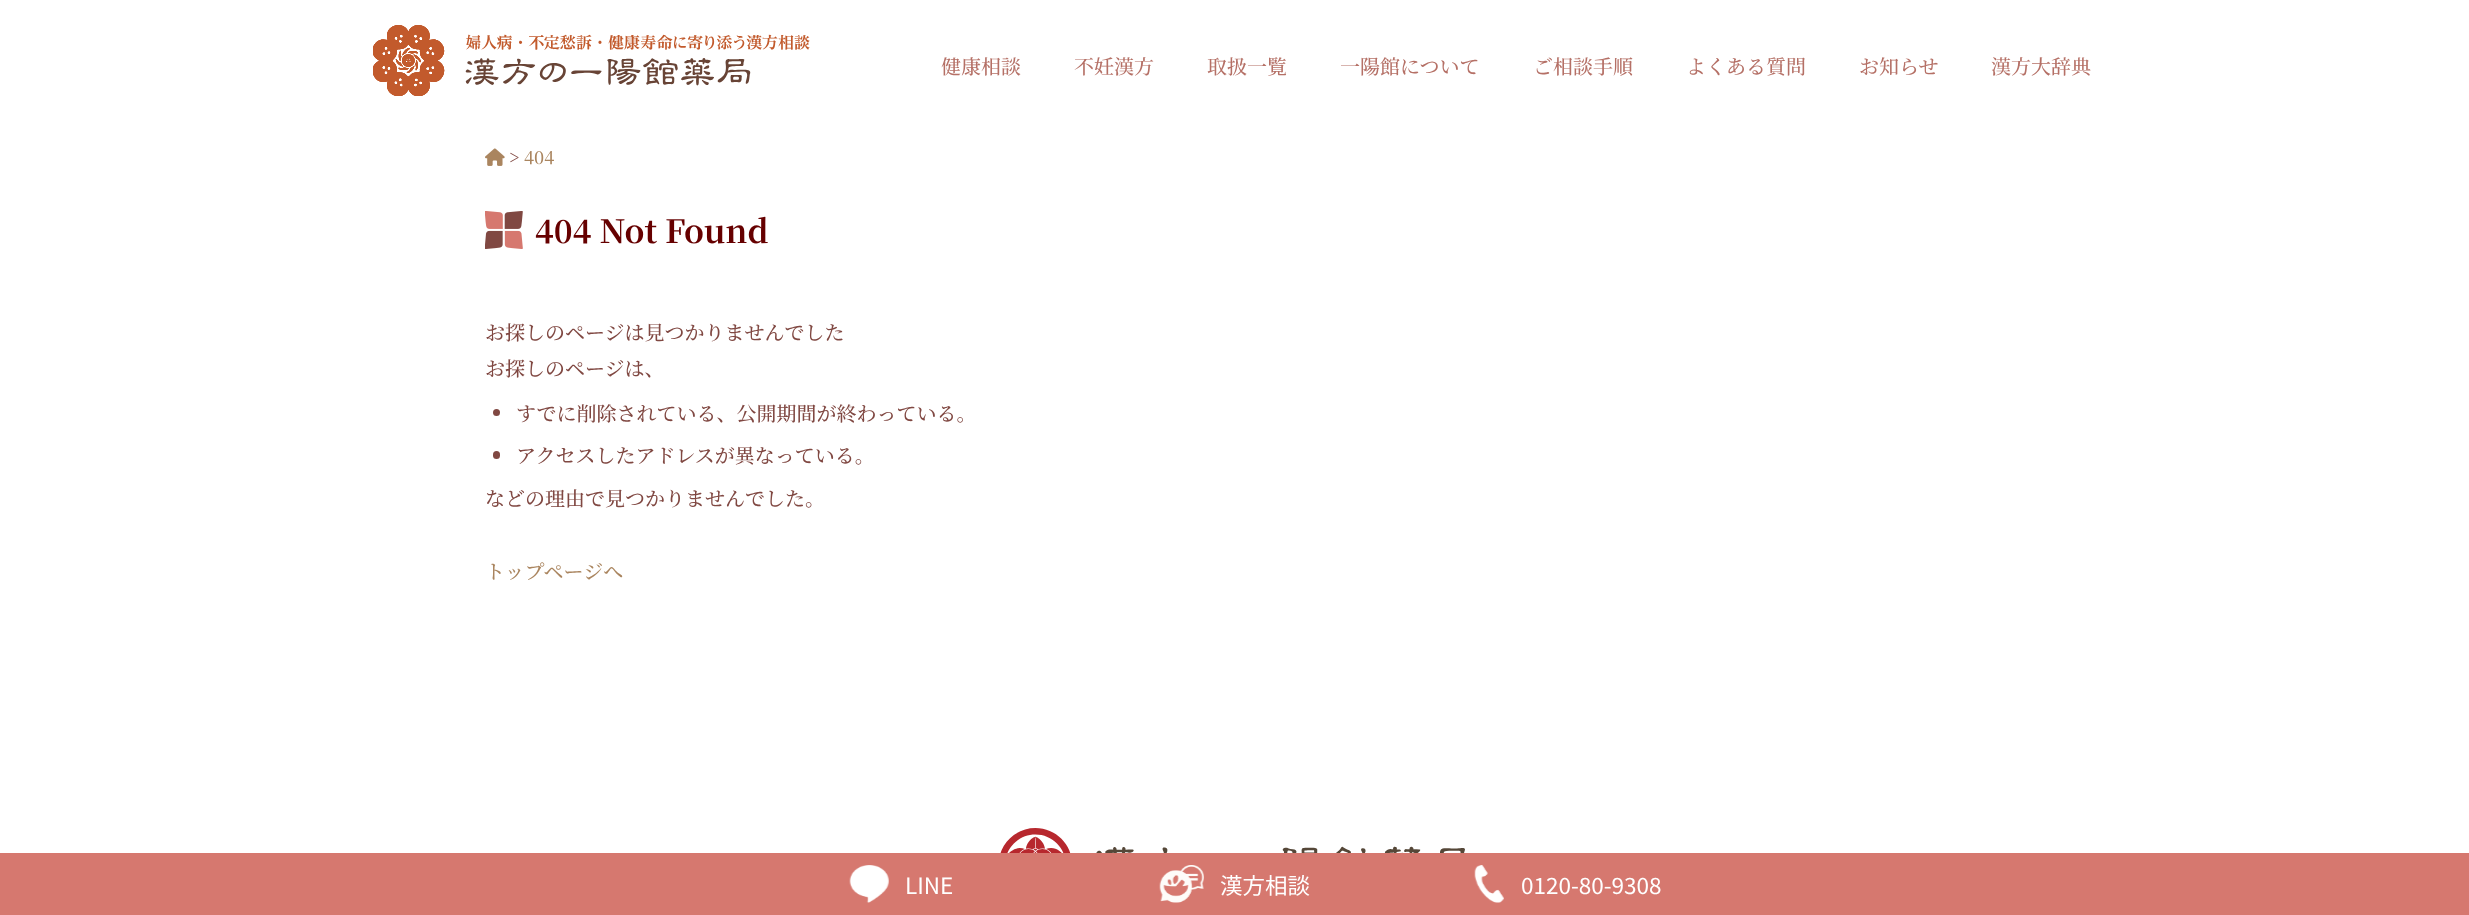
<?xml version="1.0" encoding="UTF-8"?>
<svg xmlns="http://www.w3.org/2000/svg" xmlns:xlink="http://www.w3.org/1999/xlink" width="2469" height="915">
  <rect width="100%" height="100%" fill="#ffffff" />
  <image x="373" y="25" width="437" height="71" xlink:href="image1.png" />
  <image x="485" y="148" width="20" height="18" xlink:href="image2.png" />
  <image x="485" y="211" width="38" height="38" xlink:href="image3.png" />
  <circle cx="496.5" cy="412.5" r="3.5" fill="#804842" />
  <rect x="493" y="451" width="7" height="8" rx="3.5" fill="#804842" />
  <image x="1000" y="828" width="465" height="25" xlink:href="image4.png" />
  <rect y="853" width="2469" height="62" fill="#d6786f" />
  <image x="849" y="865" width="40" height="38" xlink:href="image5.png" />
  <image x="1159" y="865" width="45" height="38" xlink:href="image6.png" />
  <image x="1474" y="865" width="30" height="38" xlink:href="image7.png" />
  <text x="941" y="74" style="font-family: Noto Serif JP; font-size: 20px; font-weight: 500; fill: #b57066">健康相談</text>
  <text x="1074" y="74" style="font-family: Noto Serif JP; font-size: 20px; font-weight: 500; fill: #b57066">不妊漢方</text>
  <text x="1207" y="74" style="font-family: Noto Serif JP; font-size: 20px; font-weight: 500; fill: #b57066">取扱一覧</text>
  <text x="1340" y="74" style="font-family: Noto Serif JP; font-size: 20px; font-weight: 500; fill: #b57066">一陽館について</text>
  <text x="1533" y="74" style="font-family: Noto Serif JP; font-size: 20px; font-weight: 500; fill: #b57066">ご相談手順</text>
  <text x="1686" y="74" style="font-family: Noto Serif JP; font-size: 20px; font-weight: 500; fill: #b57066">よくある質問</text>
  <text x="1859" y="74" style="font-family: Noto Serif JP; font-size: 20px; font-weight: 500; fill: #b57066">お知らせ</text>
  <text x="1991" y="74" style="font-family: Noto Serif JP; font-size: 20px; font-weight: 500; fill: #b57066">漢方大辞典</text>
  <text x="509" y="164" style="font-family: Noto Serif JP; font-size: 18px; font-weight: 500; fill: #804842">&gt;</text>
  <text x="524" y="164" style="font-family: Noto Serif JP; font-size: 18px; font-weight: 500; fill: #aa855f">404</text>
  <text x="535" y="243" style="font-family: Noto Serif JP; font-size: 32px; font-weight: bold; fill: #660000">404 Not Found</text>
  <text x="485" y="340" style="font-family: Noto Serif JP; font-size: 20px; font-weight: 500; fill: #804842">お探しのページは見つかりませんでした</text>
  <text x="485" y="376" style="font-family: Noto Serif JP; font-size: 20px; font-weight: 500; fill: #804842">お探しのページは、</text>
  <text x="516" y="421" style="font-family: Noto Serif JP; font-size: 20px; font-weight: 500; fill: #804842">すでに削除されている、公開期間が終わっている。</text>
  <text x="516" y="463" style="font-family: Noto Serif JP; font-size: 20px; font-weight: 500; fill: #804842">アクセスしたアドレスが異なっている。</text>
  <text x="485" y="506" style="font-family: Noto Serif JP; font-size: 20px; font-weight: 500; fill: #804842">などの理由で見つかりませんでした。</text>
  <text x="485" y="579" style="font-family: Noto Serif JP; font-size: 20px; font-weight: 500; fill: #aa855f">トップページへ</text>
  <text x="905" y="894" style="font-family: Noto Sans JP; font-size: 22.5px; fill: #ffffff">LINE</text>
  <text x="1220" y="894" style="font-family: Noto Sans JP; font-size: 22.5px; fill: #ffffff">漢方相談</text>
  <text x="1521" y="894" style="font-family: Noto Sans JP; font-size: 22.5px; fill: #ffffff">0120-80-9308</text>
</svg>
